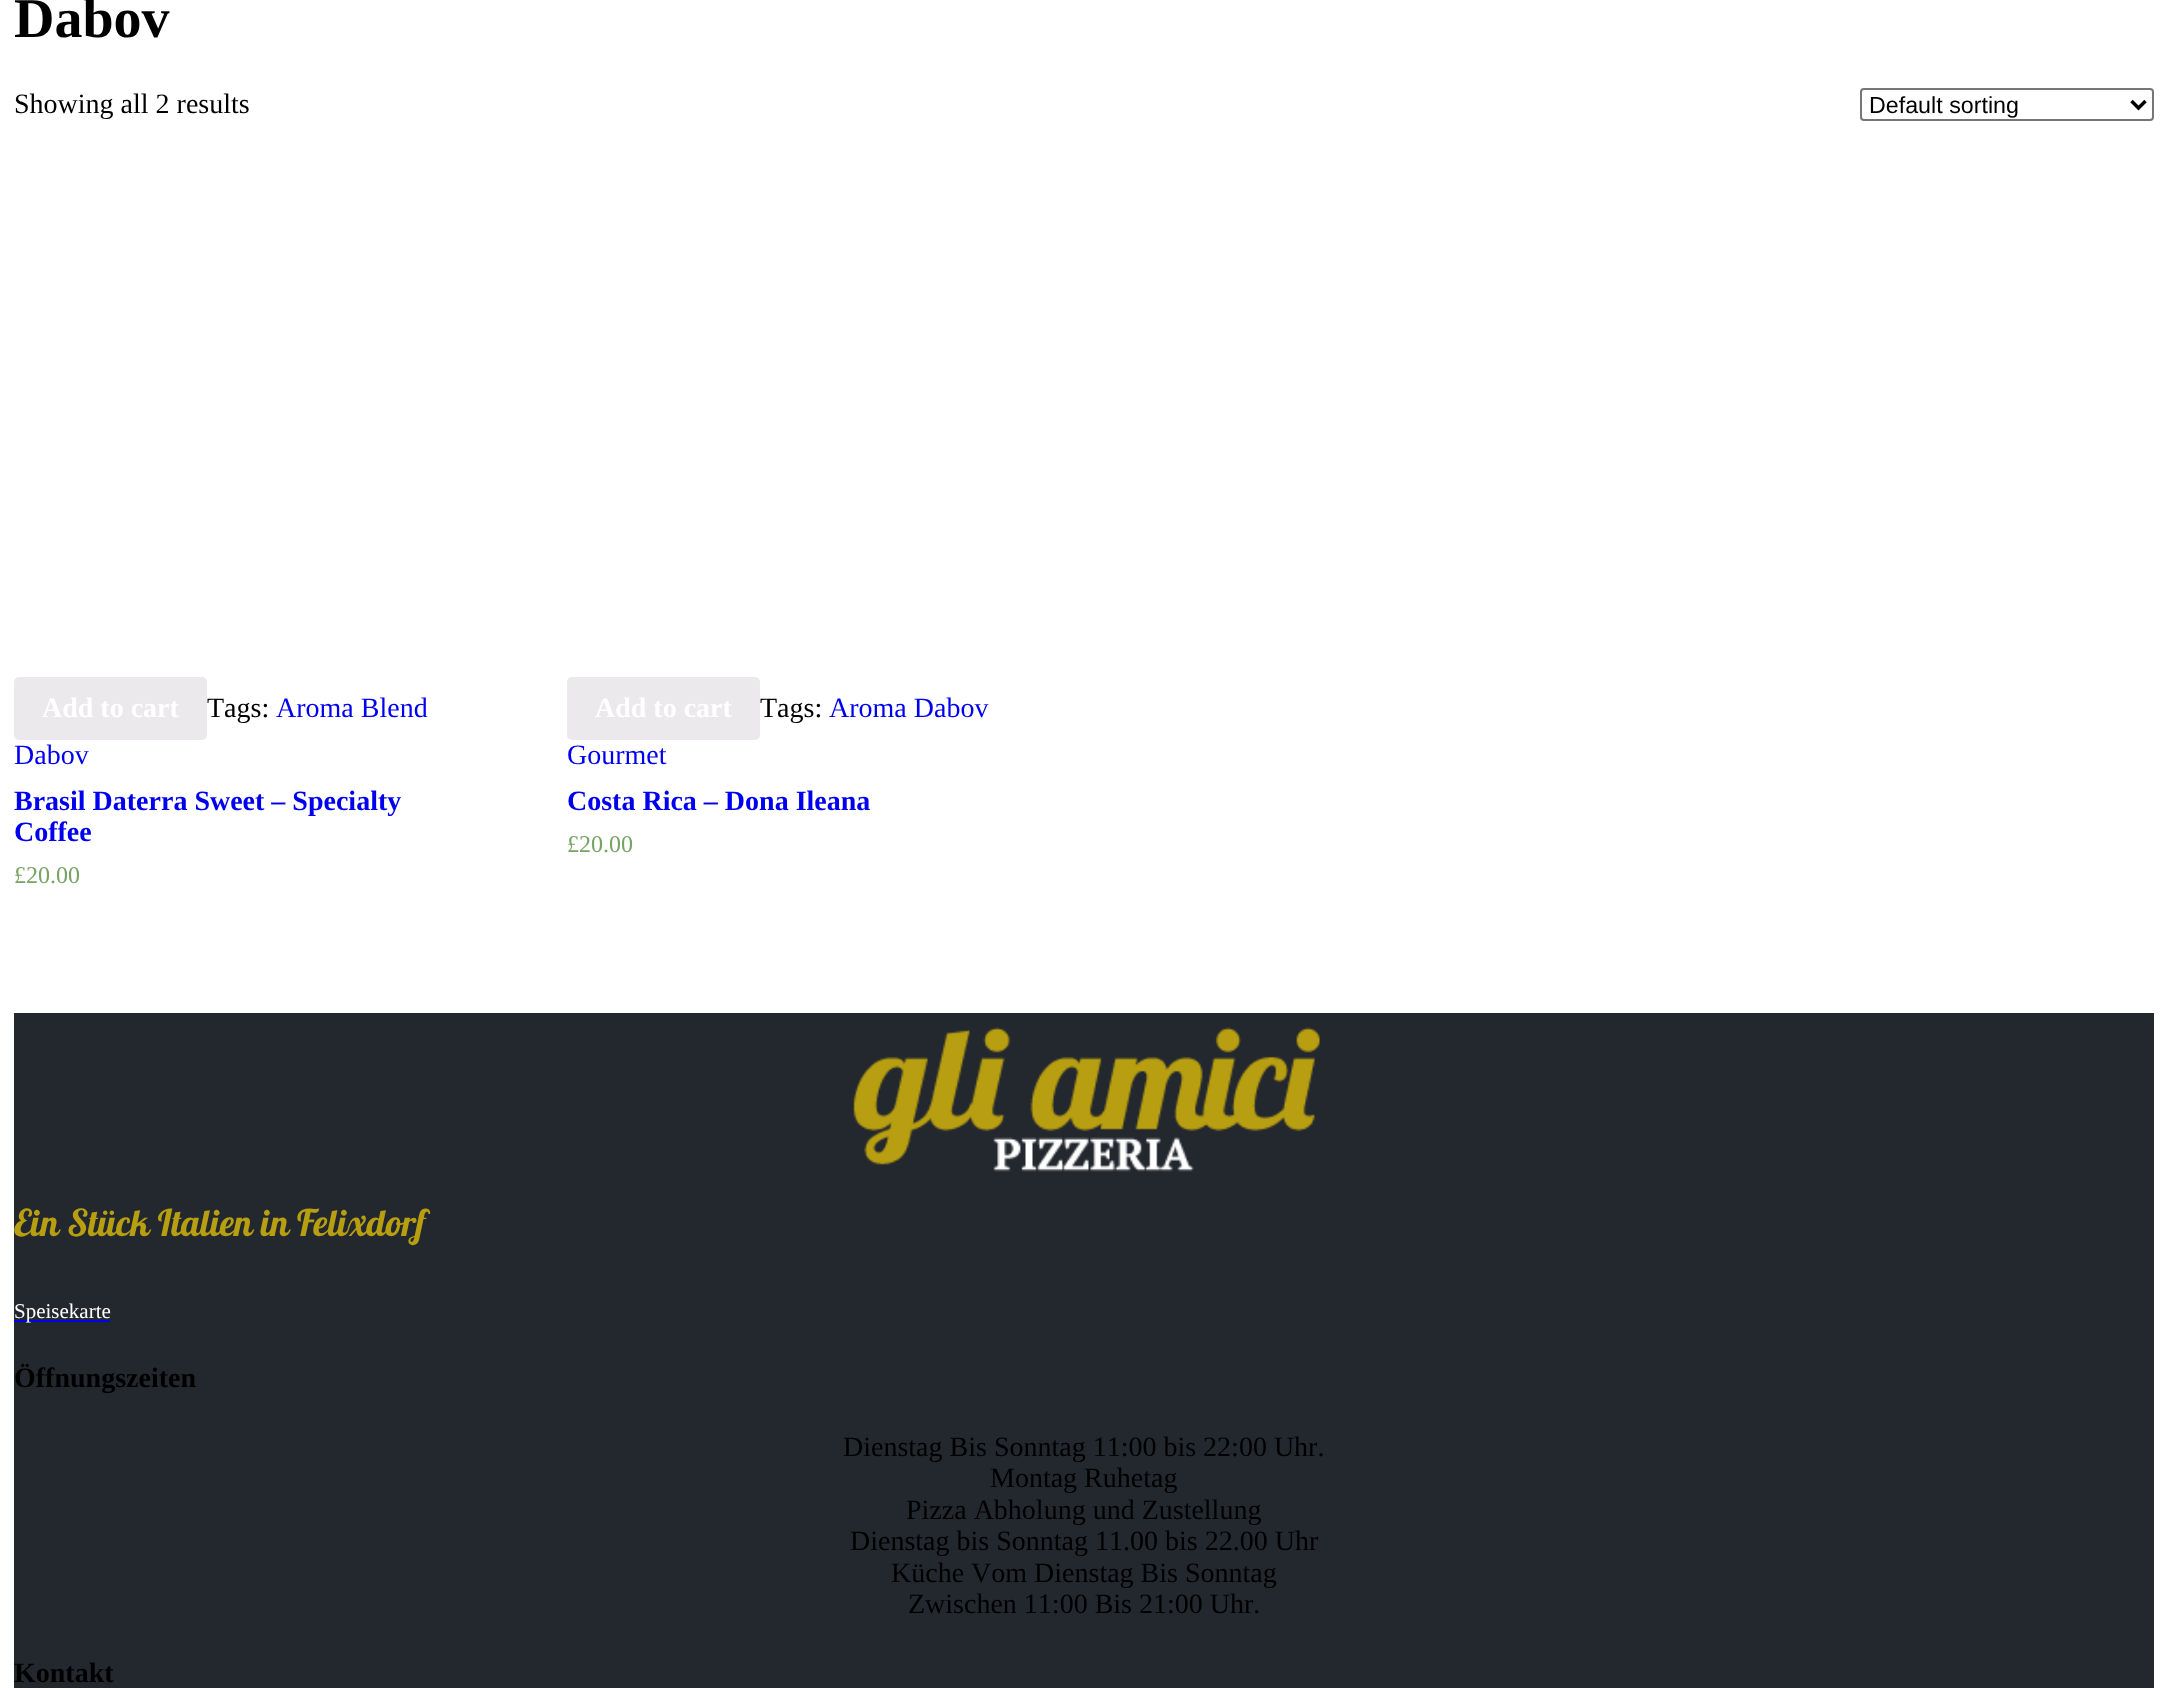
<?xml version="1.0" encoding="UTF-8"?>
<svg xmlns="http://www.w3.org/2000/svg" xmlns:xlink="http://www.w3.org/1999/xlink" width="2168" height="1688">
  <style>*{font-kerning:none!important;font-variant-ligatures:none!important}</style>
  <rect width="100%" height="100%" fill="#ffffff" />
  <rect x="1861" y="89" width="292" height="31" rx="3" fill="none" stroke="#767676" stroke-width="2" />
  <path d="M 2131.5 101 l 7 7 l 7 -7" fill="none" stroke="#000000" stroke-width="3.5" />
  <rect x="14" y="677" width="193" height="63" rx="5" fill="#ebe9eb" />
  <rect x="567" y="677" width="193" height="63" rx="5" fill="#ebe9eb" />
  <rect x="14" y="1013" width="2140" height="675" fill="#23282f" />
  <image x="853" y="1027" width="467" height="145" xlink:href="image1.png" />
  <rect x="14" y="1320" width="96" height="2" fill="#0000ee" />
  <text x="14" y="37" style="font-family: Liberation Serif; font-size: 56px; font-weight: bold; fill: #000000">Dabov</text>
  <text x="14" y="113" style="font-family: Liberation Serif; font-size: 28px; fill: #000000">Showing all 2 results</text>
  <text x="1869" y="113" style="font-family: Liberation Sans; font-size: 23.25px; fill: #000000">Default sorting</text>
  <text x="42" y="717" style="font-family: Liberation Serif; font-size: 28px; font-weight: bold; fill: #ffffff">Add to cart</text>
  <text x="207" y="717" style="font-family: Liberation Serif; font-size: 28px; fill: #000000">Tags:</text>
  <text x="276" y="717" style="font-family: Liberation Serif; font-size: 28px; fill: #0000ee">Aroma Blend</text>
  <text x="14" y="764" style="font-family: Liberation Serif; font-size: 28px; fill: #0000ee">Dabov</text>
  <text x="14" y="810" style="font-family: Liberation Serif; font-size: 28px; font-weight: bold; fill: #0000ee">Brasil Daterra Sweet – Specialty</text>
  <text x="14" y="841" style="font-family: Liberation Serif; font-size: 28px; font-weight: bold; fill: #0000ee">Coffee</text>
  <text x="14" y="883" style="font-family: Liberation Serif; font-size: 24px; fill: #77a464">£20.00</text>
  <text x="595" y="717" style="font-family: Liberation Serif; font-size: 28px; font-weight: bold; fill: #ffffff">Add to cart</text>
  <text x="760" y="717" style="font-family: Liberation Serif; font-size: 28px; fill: #000000">Tags:</text>
  <text x="829" y="717" style="font-family: Liberation Serif; font-size: 28px; fill: #0000ee">Aroma Dabov</text>
  <text x="567" y="764" style="font-family: Liberation Serif; font-size: 28px; fill: #0000ee">Gourmet</text>
  <text x="567" y="810" style="font-family: Liberation Serif; font-size: 28px; font-weight: bold; fill: #0000ee">Costa Rica – Dona Ileana</text>
  <text x="567" y="852" style="font-family: Liberation Serif; font-size: 24px; fill: #77a464">£20.00</text>
  <text x="14" y="1236" style="font-family: Lobster; font-size: 36.75px; fill: #b89e11">Ein Stück Italien in</text>
  <text x="297" y="1236" style="font-family: Lobster; font-size: 36.75px; fill: #b89e11">Felixdorf</text>
  <text x="14" y="1318" style="font-family: Liberation Serif; font-size: 21px; fill: #ffffff">Speisekarte</text>
  <text x="14" y="1387" style="font-family: Liberation Serif; font-size: 28px; font-weight: bold; fill: #000000">Öffnungszeiten</text>
  <text x="843" y="1456" style="font-family: Liberation Serif; font-size: 28px; fill: #000000">Dienstag Bis Sonntag 11:00 bis 22:00 Uhr.</text>
  <text x="990" y="1487" style="font-family: Liberation Serif; font-size: 28px; fill: #000000">Montag Ruhetag</text>
  <text x="906" y="1519" style="font-family: Liberation Serif; font-size: 28px; fill: #000000">Pizza Abholung und Zustellung</text>
  <text x="850" y="1550" style="font-family: Liberation Serif; font-size: 28px; fill: #000000">Dienstag bis Sonntag 11.00 bis 22.00 Uhr</text>
  <text x="891" y="1582" style="font-family: Liberation Serif; font-size: 28px; fill: #000000">Küche Vom Dienstag Bis Sonntag</text>
  <text x="908" y="1613" style="font-family: Liberation Serif; font-size: 28px; fill: #000000">Zwischen 11:00 Bis 21:00 Uhr.</text>
  <text x="14" y="1682" style="font-family: Liberation Serif; font-size: 28px; font-weight: bold; fill: #000000">Kontakt</text>
</svg>
